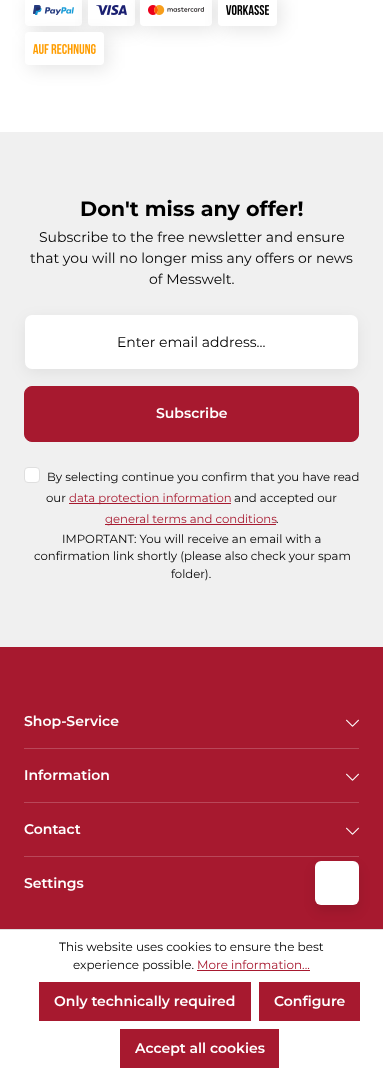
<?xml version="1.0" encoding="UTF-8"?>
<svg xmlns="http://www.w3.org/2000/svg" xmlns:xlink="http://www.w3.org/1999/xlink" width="383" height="1076">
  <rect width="100%" height="100%" fill="#ffffff" />
  <rect x="29" y="-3" width="57" height="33" rx="4" fill="#000000" fill-opacity="0.1" filter="blur(9px)" />
  <rect x="25" y="-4" width="57" height="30" rx="4" fill="#ffffff" />
  <rect x="92" y="-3" width="47" height="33" rx="4" fill="#000000" fill-opacity="0.1" filter="blur(9px)" />
  <rect x="88" y="-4" width="47" height="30" rx="4" fill="#ffffff" />
  <rect x="29" y="36" width="79" height="33" rx="4" fill="#000000" fill-opacity="0.1" filter="blur(9px)" />
  <image x="33" y="5" width="41" height="10" xlink:href="image1.png" />
  <rect x="144" y="-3" width="72" height="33" rx="4" fill="#000000" fill-opacity="0.1" filter="blur(9px)" />
  <image x="96" y="5" width="31" height="10" xlink:href="image2.png" />
  <rect x="140" y="-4" width="72" height="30" rx="4" fill="#ffffff" />
  <rect x="222" y="-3" width="59" height="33" rx="4" fill="#000000" fill-opacity="0.1" filter="blur(9px)" />
  <image x="148" y="5" width="56" height="10" xlink:href="image3.png" />
  <rect x="218" y="-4" width="59" height="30" rx="4" fill="#ffffff" />
  <image x="226" y="5" width="43" height="10" xlink:href="image4.png" />
  <rect x="25" y="32" width="79" height="33" rx="4" fill="#ffffff" />
  <image x="33" y="44" width="63" height="10" xlink:href="image5.png" />
  <rect y="132" width="383" height="515" fill="#f0f0f0" />
  <rect x="26" y="320" width="331" height="52" rx="6" fill="#000000" fill-opacity="0.07" filter="blur(8px)" />
  <rect x="25" y="315" width="333" height="54" rx="7" fill="#ffffff" />
  <rect x="24.5" y="386.5" width="334" height="55" rx="7.5" fill="#a7192f" stroke="#a7192f" />
  <rect x="24.5" y="467.5" width="15" height="15" rx="3.5" fill="#ffffff" stroke="#dfdfdf" />
  <rect x="69" y="503" width="162" height="1" fill="#a7192f" />
  <rect x="105" y="524" width="171" height="1" fill="#a7192f" />
  <rect y="647" width="383" height="282" fill="#a7192f" />
  <rect x="24" y="748" width="335" height="1" fill="#b94759" />
  <image x="346" y="719" width="13" height="8" xlink:href="image6.png" />
  <rect x="24" y="802" width="335" height="1" fill="#b94759" />
  <image x="346" y="773" width="13" height="8" xlink:href="image6.png" />
  <rect x="24" y="856" width="335" height="1" fill="#b94759" />
  <image x="346" y="827" width="13" height="8" xlink:href="image6.png" />
  <rect x="315" y="867" width="44" height="44" rx="6" fill="#000000" fill-opacity="0.1" filter="blur(6px)" />
  <rect x="315" y="861" width="44" height="44" rx="6" fill="#ffffff" />
  <rect y="929" width="383" height="1" fill="#dfdfdf" />
  <rect x="197" y="970" width="113" height="1" fill="#a7192f" />
  <rect x="39" y="982" width="212" height="39" fill="#a7192f" />
  <rect x="259" y="982" width="101" height="39" fill="#a7192f" />
  <rect x="120" y="1029" width="159" height="39" fill="#a7192f" />
  <text x="80" y="216" style="font-family: Montserrat; font-size: 20.75px; font-weight: bold; fill: #000000">Don't miss any offer!</text>
  <text x="39" y="242" style="font-family: Montserrat; font-size: 14px; fill: #000000">Subscribe to the free newsletter and ensure</text>
  <text x="30" y="263" style="font-family: Montserrat; font-size: 14px; fill: #000000">that you will no longer miss any offers or news</text>
  <text x="149" y="284" style="font-family: Montserrat; font-size: 14px; fill: #000000">of Messwelt.</text>
  <text x="117" y="347" style="font-family: Montserrat; font-size: 14px; fill: #000000">Enter email address...</text>
  <text x="156" y="418" style="font-family: Montserrat; font-size: 14px; font-weight: 600; fill: #ffffff">Subscribe</text>
  <text x="47" y="481" style="font-family: Montserrat; font-size: 11.7px; fill: #000000">By selecting continue you confirm that you have read</text>
  <text x="46" y="502" style="font-family: Montserrat; font-size: 11.7px; fill: #000000">our</text>
  <text x="69" y="502" style="font-family: Montserrat; font-size: 11.7px; fill: #a7192f">data protection information</text>
  <text x="234" y="502" style="font-family: Montserrat; font-size: 11.7px; fill: #000000">and accepted our</text>
  <text x="105" y="523" style="font-family: Montserrat; font-size: 11.7px; fill: #a7192f">general terms and conditions</text>
  <text x="276" y="523" style="font-family: Montserrat; font-size: 11.7px; fill: #000000">.</text>
  <text x="62" y="543" style="font-family: Montserrat; font-size: 11.7px; fill: #000000">IMPORTANT: You will receive an email with a</text>
  <text x="34" y="560" style="font-family: Montserrat; font-size: 11.7px; fill: #000000">confirmation link shortly (please also check your spam</text>
  <text x="171" y="578" style="font-family: Montserrat; font-size: 11.7px; fill: #000000">folder).</text>
  <text x="24" y="726" style="font-family: Montserrat; font-size: 14px; font-weight: 600; fill: #ffffff">Shop-Service</text>
  <text x="24" y="780" style="font-family: Montserrat; font-size: 14px; font-weight: 600; fill: #ffffff">Information</text>
  <text x="24" y="834" style="font-family: Montserrat; font-size: 14px; font-weight: 600; fill: #ffffff">Contact</text>
  <text x="24" y="888" style="font-family: Montserrat; font-size: 14px; font-weight: 600; fill: #ffffff">Settings</text>
  <text x="59" y="951" style="font-family: Montserrat; font-size: 12px; fill: #000000">This website uses cookies to ensure the best</text>
  <text x="73" y="969" style="font-family: Montserrat; font-size: 12px; fill: #000000">experience possible.</text>
  <text x="197" y="969" style="font-family: Montserrat; font-size: 12px; fill: #a7192f">More information...</text>
  <text x="54" y="1006" style="font-family: Montserrat; font-size: 14px; font-weight: 600; fill: #ffffff">Only technically required</text>
  <text x="274" y="1006" style="font-family: Montserrat; font-size: 14px; font-weight: 600; fill: #ffffff">Configure</text>
  <text x="135" y="1053" style="font-family: Montserrat; font-size: 14px; font-weight: 600; fill: #ffffff">Accept all cookies</text>
</svg>
